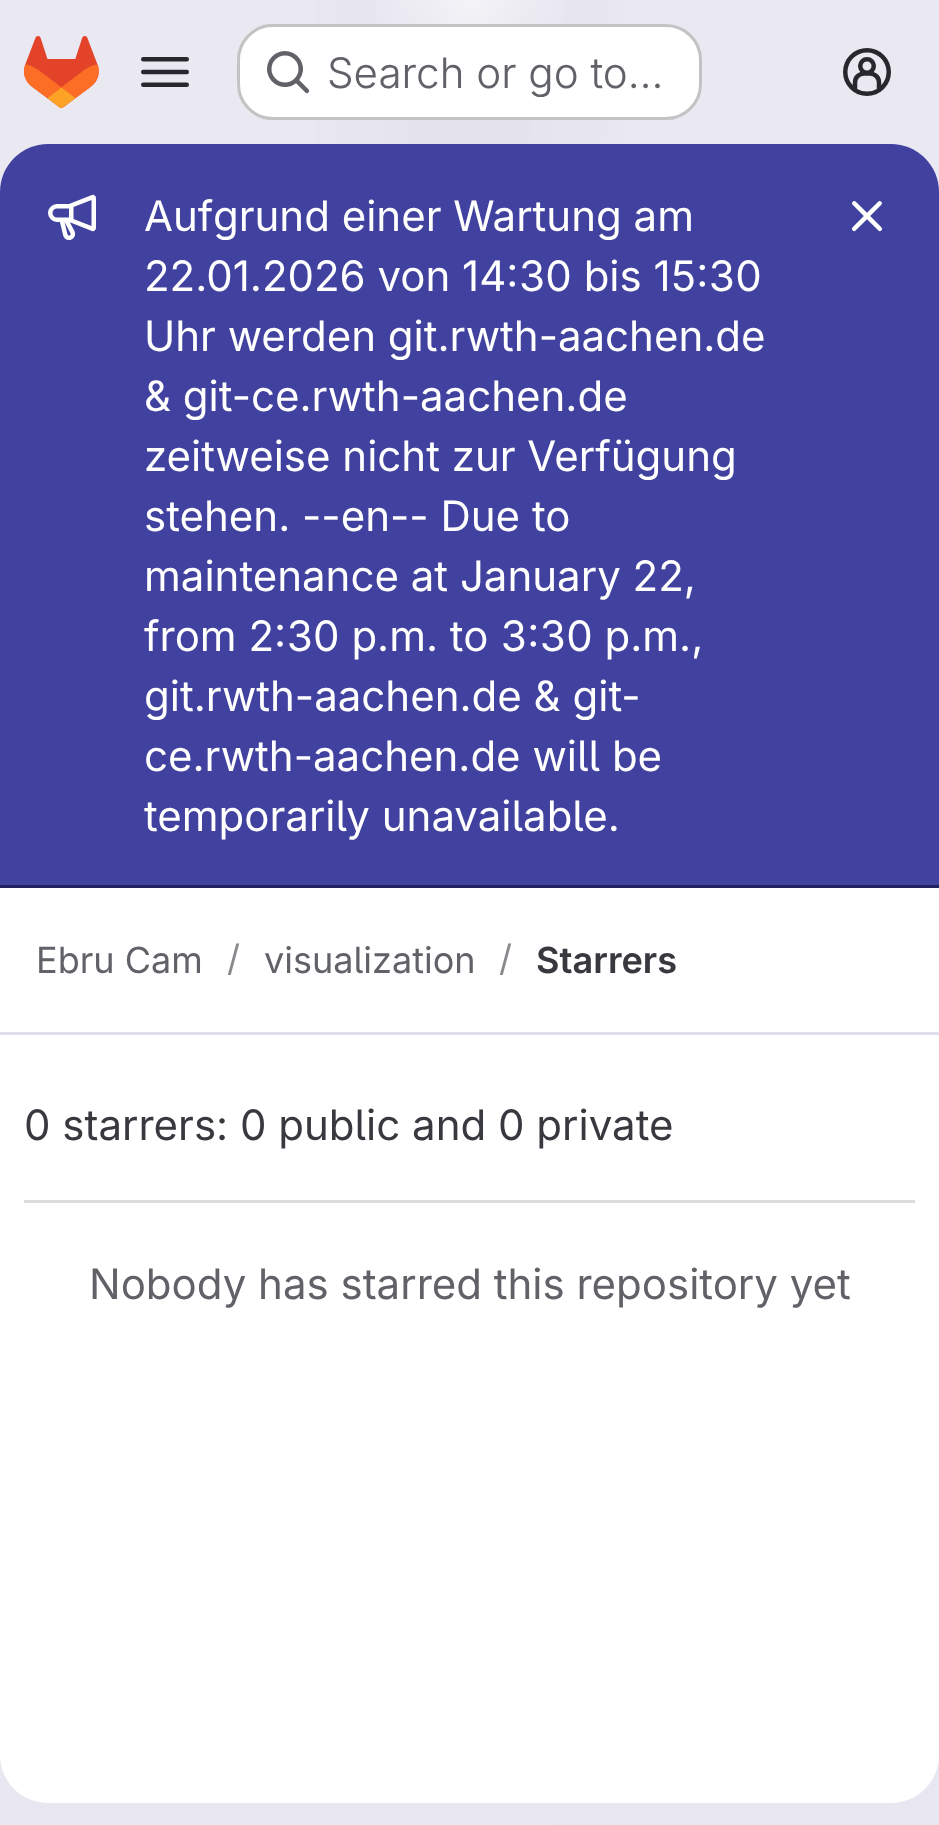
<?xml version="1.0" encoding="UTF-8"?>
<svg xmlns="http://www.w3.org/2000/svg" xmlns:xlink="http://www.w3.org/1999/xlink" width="939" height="1825">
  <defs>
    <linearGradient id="g1" gradientUnits="userSpaceOnUse" x1="640" y1="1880" x2="299" y2="-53"><stop offset="0" stop-color="#e8e6f0" /><stop offset="0.7" stop-color="#eae9f2" /></linearGradient>
    <radialGradient id="g2" gradientUnits="userSpaceOnUse" cx="0" cy="0" r="1" gradientTransform="matrix(470 0 0 1827 470 0)"><stop offset="0" stop-color="#e4e2ed" /><stop offset="0.45" stop-color="#e4e2ed" stop-opacity="0" /></radialGradient>
    <radialGradient id="g3" gradientUnits="userSpaceOnUse" cx="0" cy="0" r="1" gradientTransform="matrix(470 0 0 1827 470 0)"><stop offset="0" stop-color="#e4e2ec" /><stop offset="0.32" stop-color="#e4e2ec" stop-opacity="0" /></radialGradient>
    <radialGradient id="g4" gradientUnits="userSpaceOnUse" cx="470" cy="0" r="1886"><stop offset="0" stop-color="#ffffff" stop-opacity="0.6" /><stop offset="0.06" stop-color="#ffffff" stop-opacity="0" /></radialGradient>
  </defs>
  <rect width="100%" height="100%" fill="#ffffff" />
  <rect width="939" height="1825" fill="url(#g1)" />
  <rect x="316" width="308" height="144" fill="url(#g2)" />
  <rect x="407" y="10" width="126" height="133" fill="url(#g3)" />
  <rect x="376" width="188" height="24" fill="url(#g4)" />
  <image x="24" y="36" width="75" height="72" xlink:href="image1.png" />
  <image x="141" y="57" width="48" height="30" xlink:href="image2.png" />
  <rect x="237" y="24" width="465" height="96" rx="36" fill="#ffffff" />
  <rect x="238.5" y="25.5" width="462" height="93" rx="34.5" fill="none" stroke="#050506" stroke-opacity="0.24" stroke-width="3" />
  <image x="267" y="51" width="43" height="43" xlink:href="image3.png" />
  <image x="843" y="48" width="48" height="48" xlink:href="image4.png" />
  <rect y="144" width="939" height="1659" rx="48" fill="#ffffff" />
  <path d="M 48 144 h 843 c 26.5 0 48 21.5 48 48 v 696 h -939 v -696 c 0 -26.5 21.5 -48 48 -48 z" fill="#41419f" />
  <rect y="885" width="939" height="3" fill="#222261" />
  <image x="48" y="194" width="48" height="46" xlink:href="image5.png" />
  <image x="851" y="201" width="32" height="31" xlink:href="image6.png" />
  <rect y="1032" width="939" height="3" fill="#e1dfec" />
  <rect x="24" y="1200" width="891" height="3" fill="#dcdcde" />
  <text x="327" y="88" style="font-family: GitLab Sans; font-size: 42px; font-weight: 300; fill: #626168">Search or go to…</text>
  <text x="144" y="231" style="font-family: GitLab Sans; font-size: 42px; fill: #ffffff">Aufgrund einer Wartung am</text>
  <text x="144" y="291" style="font-family: GitLab Sans; font-size: 42px; fill: #ffffff">22.01.2026 von 14:30 bis 15:30</text>
  <text x="144" y="351" style="font-family: GitLab Sans; font-size: 42px; fill: #ffffff">Uhr werden git.rwth-aachen.de</text>
  <text x="144" y="411" style="font-family: GitLab Sans; font-size: 42px; fill: #ffffff">&amp; git-ce.rwth-aachen.de</text>
  <text x="144" y="471" style="font-family: GitLab Sans; font-size: 42px; fill: #ffffff">zeitweise nicht zur Verfügung</text>
  <text x="144" y="531" style="font-family: GitLab Sans; font-size: 42px; fill: #ffffff">stehen. --en-- Due to</text>
  <text x="144" y="591" style="font-family: GitLab Sans; font-size: 42px; fill: #ffffff">maintenance at January 22,</text>
  <text x="144" y="651" style="font-family: GitLab Sans; font-size: 42px; fill: #ffffff">from 2:30 p.m. to 3:30 p.m.,</text>
  <text x="144" y="711" style="font-family: GitLab Sans; font-size: 42px; fill: #ffffff">git.rwth-aachen.de &amp; git-</text>
  <text x="144" y="771" style="font-family: GitLab Sans; font-size: 42px; fill: #ffffff">ce.rwth-aachen.de will be</text>
  <text x="144" y="831" style="font-family: GitLab Sans; font-size: 42px; fill: #ffffff">temporarily unavailable.</text>
  <text x="36" y="973" style="font-family: GitLab Sans; font-size: 36px; fill: #626168">Ebru Cam</text>
  <text x="227" y="971" style="font-family: GitLab Sans; font-size: 36px; fill: #89888d">/</text>
  <text x="264" y="973" style="font-family: GitLab Sans; font-size: 36px; fill: #626168">visualization</text>
  <text x="499" y="971" style="font-family: GitLab Sans; font-size: 36px; fill: #89888d">/</text>
  <text x="536" y="973" style="font-family: GitLab Sans; font-size: 36px; font-weight: 600; fill: #3a383f">Starrers</text>
  <text x="24" y="1140" style="font-family: GitLab Sans; font-size: 42px; fill: #3a383f">0 starrers: 0 public and 0 private</text>
  <text x="89" y="1299" style="font-family: GitLab Sans; font-size: 42px; fill: #626168">Nobody has starred this repository yet</text>
</svg>
